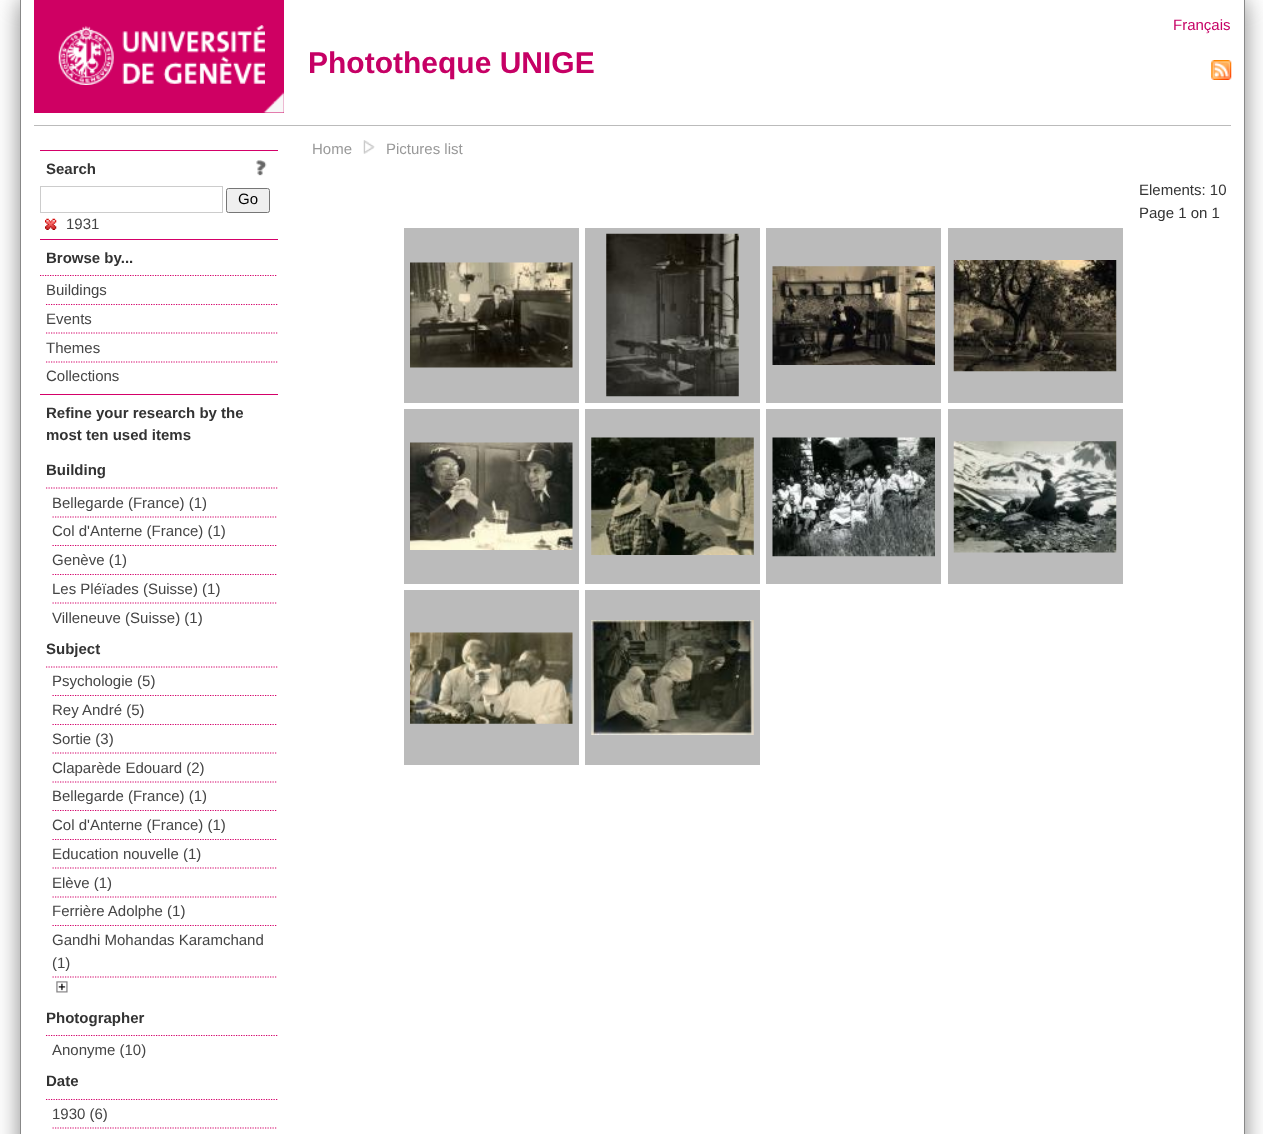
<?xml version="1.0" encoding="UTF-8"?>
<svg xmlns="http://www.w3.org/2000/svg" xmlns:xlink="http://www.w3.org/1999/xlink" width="1263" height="1134">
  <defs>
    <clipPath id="clip1"><path d="M 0 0 h 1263 v 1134 h -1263 z m 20 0 h 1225 v 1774 h -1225 z" clip-rule="evenodd" /></clipPath>
  </defs>
  <rect width="100%" height="100%" fill="#ffffff" />
  <g clip-path="url(#clip1)">
    <rect x="20" width="1225" height="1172" fill="#888888" filter="blur(12.5px)" />
  </g>
  <rect x="1244" width="1" height="1134" fill="#888888" />
  <rect x="20" width="1" height="1134" fill="#888888" />
  <rect x="34" width="250" height="113" fill="#cf0063" />
  <image x="263" y="92" width="21" height="21" xlink:href="image1.png" />
  <image x="58" y="25" width="207" height="60" xlink:href="image2.png" />
  <image x="1211" y="60" width="21" height="20" xlink:href="image3.png" />
  <rect x="34" y="125" width="1197" height="1" fill="#bbbbbb" />
  <rect x="40" y="150" width="238" height="1" fill="#d40069" />
  <image x="256" y="160" width="11" height="16" xlink:href="image4.png" />
  <rect x="40.5" y="186.5" width="182" height="26" fill="none" stroke="#cccccc" />
  <rect x="226.5" y="188.5" width="43" height="24" rx="2" fill="#efefef" stroke="#767676" />
  <image x="45" y="218" width="12" height="12" xlink:href="image5.png" />
  <rect x="40" y="239" width="238" height="1" fill="#d40069" />
  <path d="M 40 275.5 h 237.5" fill="none" stroke="#d40069" stroke-width="1.2" stroke-dasharray="1.25 1.25" />
  <path d="M 46 304.5 h 231.5" fill="none" stroke="#d40069" stroke-width="1.2" stroke-dasharray="1.25 1.25" />
  <path d="M 46 333 h 231.5" fill="none" stroke="#d40069" stroke-width="1.2" stroke-dasharray="1.25 1.25" />
  <path d="M 46 362 h 231.5" fill="none" stroke="#d40069" stroke-width="1.2" stroke-dasharray="1.25 1.25" />
  <rect x="40" y="394" width="238" height="1" fill="#d40069" />
  <path d="M 46 488 h 231.5" fill="none" stroke="#d40069" stroke-width="1.2" stroke-dasharray="1.25 1.25" />
  <path d="M 52.5 517 h 225" fill="none" stroke="#d40069" stroke-width="1.2" stroke-dasharray="1.25 1.25" />
  <path d="M 52.5 545.5 h 225" fill="none" stroke="#d40069" stroke-width="1.2" stroke-dasharray="1.25 1.25" />
  <path d="M 52.5 574.5 h 225" fill="none" stroke="#d40069" stroke-width="1.2" stroke-dasharray="1.25 1.25" />
  <path d="M 52.5 603 h 225" fill="none" stroke="#d40069" stroke-width="1.2" stroke-dasharray="1.25 1.25" />
  <path d="M 46 667 h 231.5" fill="none" stroke="#d40069" stroke-width="1.2" stroke-dasharray="1.25 1.25" />
  <path d="M 52.5 695.5 h 225" fill="none" stroke="#d40069" stroke-width="1.2" stroke-dasharray="1.25 1.25" />
  <path d="M 52.5 724.5 h 225" fill="none" stroke="#d40069" stroke-width="1.2" stroke-dasharray="1.25 1.25" />
  <path d="M 52.5 753 h 225" fill="none" stroke="#d40069" stroke-width="1.2" stroke-dasharray="1.25 1.25" />
  <path d="M 52.5 782 h 225" fill="none" stroke="#d40069" stroke-width="1.2" stroke-dasharray="1.25 1.25" />
  <path d="M 52.5 810.5 h 225" fill="none" stroke="#d40069" stroke-width="1.2" stroke-dasharray="1.25 1.25" />
  <path d="M 52.5 839.5 h 225" fill="none" stroke="#d40069" stroke-width="1.2" stroke-dasharray="1.25 1.25" />
  <path d="M 52.5 868 h 225" fill="none" stroke="#d40069" stroke-width="1.2" stroke-dasharray="1.25 1.25" />
  <path d="M 52.5 897 h 225" fill="none" stroke="#d40069" stroke-width="1.2" stroke-dasharray="1.25 1.25" />
  <path d="M 52.5 925.5 h 225" fill="none" stroke="#d40069" stroke-width="1.2" stroke-dasharray="1.25 1.25" />
  <path d="M 52.5 977 h 225" fill="none" stroke="#d40069" stroke-width="1.2" stroke-dasharray="1.25 1.25" />
  <image x="56" y="981" width="12" height="12" xlink:href="image6.png" />
  <path d="M 46 1035.5 h 231.5" fill="none" stroke="#d40069" stroke-width="1.2" stroke-dasharray="1.25 1.25" />
  <path d="M 46 1099.5 h 231.5" fill="none" stroke="#d40069" stroke-width="1.2" stroke-dasharray="1.25 1.25" />
  <path d="M 52.5 1128 h 225" fill="none" stroke="#d40069" stroke-width="1.2" stroke-dasharray="1.25 1.25" />
  <image x="363" y="140" width="12" height="14" xlink:href="image7.png" />
  <rect x="404" y="228" width="175" height="175" fill="#bbbbbb" />
  <image x="410" y="262" width="163" height="106" xlink:href="image8.png" />
  <rect x="585" y="228" width="175" height="175" fill="#bbbbbb" />
  <image x="606" y="233" width="133" height="164" xlink:href="image9.png" />
  <rect x="766" y="228" width="175" height="175" fill="#bbbbbb" />
  <image x="772" y="266" width="163" height="99" xlink:href="image10.png" />
  <rect x="948" y="228" width="175" height="175" fill="#bbbbbb" />
  <image x="953" y="260" width="164" height="112" xlink:href="image11.png" />
  <rect x="404" y="409" width="175" height="175" fill="#bbbbbb" />
  <image x="410" y="442" width="163" height="108" xlink:href="image12.png" />
  <rect x="585" y="409" width="175" height="175" fill="#bbbbbb" />
  <image x="591" y="437" width="163" height="118" xlink:href="image13.png" />
  <rect x="766" y="409" width="175" height="175" fill="#bbbbbb" />
  <image x="772" y="437" width="163" height="120" xlink:href="image14.png" />
  <rect x="948" y="409" width="175" height="175" fill="#bbbbbb" />
  <image x="953" y="441" width="164" height="112" xlink:href="image15.png" />
  <rect x="404" y="590" width="175" height="175" fill="#bbbbbb" />
  <image x="410" y="632" width="163" height="92" xlink:href="image16.png" />
  <rect x="585" y="590" width="175" height="175" fill="#bbbbbb" />
  <image x="591" y="620" width="163" height="115" xlink:href="image17.png" />
  <text x="1173" y="30" style="font-family: Liberation Sans; font-size: 15px; fill: #c60065">Français</text>
  <text x="308" y="73" style="font-family: Liberation Sans; font-size: 30px; font-weight: bold; fill: #c60065">Phototheque UNIGE</text>
  <text x="46" y="174" style="font-family: Liberation Sans; font-size: 15px; font-weight: bold; fill: #333333">Search</text>
  <text x="238" y="204" style="font-family: Liberation Sans; font-size: 15px; fill: #000000">Go</text>
  <text x="66" y="229" style="font-family: Liberation Sans; font-size: 15px; fill: #454545">1931</text>
  <text x="46" y="263" style="font-family: Liberation Sans; font-size: 15px; font-weight: bold; fill: #333333">Browse by...</text>
  <text x="46" y="295" style="font-family: Liberation Sans; font-size: 15px; fill: #454545">Buildings</text>
  <text x="46" y="324" style="font-family: Liberation Sans; font-size: 15px; fill: #454545">Events</text>
  <text x="46" y="353" style="font-family: Liberation Sans; font-size: 15px; fill: #454545">Themes</text>
  <text x="46" y="381" style="font-family: Liberation Sans; font-size: 15px; fill: #454545">Collections</text>
  <text x="46" y="418" style="font-family: Liberation Sans; font-size: 15px; font-weight: bold; fill: #333333">Refine your research by the</text>
  <text x="46" y="440" style="font-family: Liberation Sans; font-size: 15px; font-weight: bold; fill: #333333">most ten used items</text>
  <text x="46" y="475" style="font-family: Liberation Sans; font-size: 15px; font-weight: bold; fill: #333333">Building</text>
  <text x="52" y="508" style="font-family: Liberation Sans; font-size: 15px; fill: #454545">Bellegarde (France) (1)</text>
  <text x="52" y="536" style="font-family: Liberation Sans; font-size: 15px; fill: #454545">Col d'Anterne (France) (1)</text>
  <text x="52" y="565" style="font-family: Liberation Sans; font-size: 15px; fill: #454545">Genève (1)</text>
  <text x="52" y="594" style="font-family: Liberation Sans; font-size: 15px; fill: #454545">Les Pléïades (Suisse) (1)</text>
  <text x="52" y="623" style="font-family: Liberation Sans; font-size: 15px; fill: #454545">Villeneuve (Suisse) (1)</text>
  <text x="46" y="654" style="font-family: Liberation Sans; font-size: 15px; font-weight: bold; fill: #333333">Subject</text>
  <text x="52" y="686" style="font-family: Liberation Sans; font-size: 15px; fill: #454545">Psychologie (5)</text>
  <text x="52" y="715" style="font-family: Liberation Sans; font-size: 15px; fill: #454545">Rey André (5)</text>
  <text x="52" y="744" style="font-family: Liberation Sans; font-size: 15px; fill: #454545">Sortie (3)</text>
  <text x="52" y="773" style="font-family: Liberation Sans; font-size: 15px; fill: #454545">Claparède Edouard (2)</text>
  <text x="52" y="801" style="font-family: Liberation Sans; font-size: 15px; fill: #454545">Bellegarde (France) (1)</text>
  <text x="52" y="830" style="font-family: Liberation Sans; font-size: 15px; fill: #454545">Col d'Anterne (France) (1)</text>
  <text x="52" y="859" style="font-family: Liberation Sans; font-size: 15px; fill: #454545">Education nouvelle (1)</text>
  <text x="52" y="888" style="font-family: Liberation Sans; font-size: 15px; fill: #454545">Elève (1)</text>
  <text x="52" y="916" style="font-family: Liberation Sans; font-size: 15px; fill: #454545">Ferrière Adolphe (1)</text>
  <text x="52" y="945" style="font-family: Liberation Sans; font-size: 15px; fill: #454545">Gandhi Mohandas Karamchand</text>
  <text x="52" y="968" style="font-family: Liberation Sans; font-size: 15px; fill: #454545">(1)</text>
  <text x="46" y="1023" style="font-family: Liberation Sans; font-size: 15px; font-weight: bold; fill: #333333">Photographer</text>
  <text x="52" y="1055" style="font-family: Liberation Sans; font-size: 15px; fill: #454545">Anonyme (10)</text>
  <text x="46" y="1086" style="font-family: Liberation Sans; font-size: 15px; font-weight: bold; fill: #333333">Date</text>
  <text x="52" y="1119" style="font-family: Liberation Sans; font-size: 15px; fill: #454545">1930 (6)</text>
  <text x="312" y="154" style="font-family: Liberation Sans; font-size: 15px; fill: #999999">Home</text>
  <text x="386" y="154" style="font-family: Liberation Sans; font-size: 15px; fill: #999999">Pictures list</text>
  <text x="1139" y="195" style="font-family: Liberation Sans; font-size: 15px; fill: #333333">Elements: 10</text>
  <text x="1139" y="218" style="font-family: Liberation Sans; font-size: 15px; fill: #333333">Page 1 on 1</text>
</svg>
